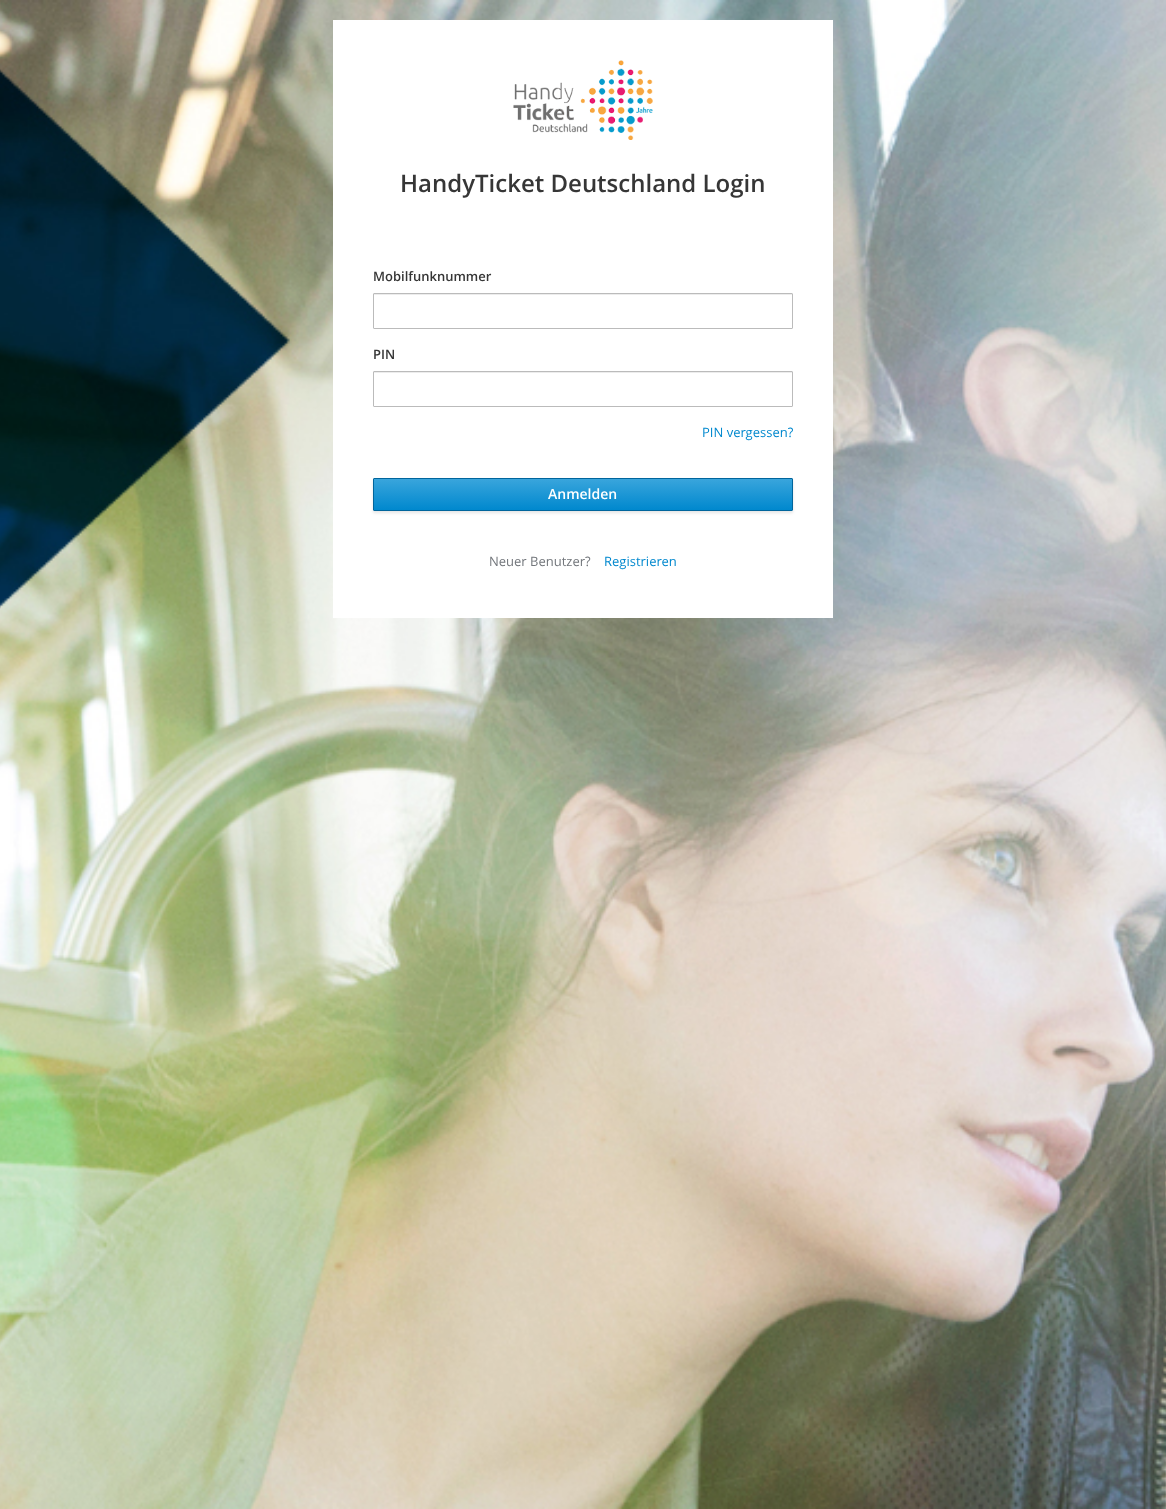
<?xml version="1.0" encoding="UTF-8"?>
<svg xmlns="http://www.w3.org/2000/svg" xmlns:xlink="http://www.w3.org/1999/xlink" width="1166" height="1509">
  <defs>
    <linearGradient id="g1" gradientUnits="userSpaceOnUse" x1="583" y1="479" x2="583" y2="510"><stop offset="0" stop-color="#39a5dc" /><stop offset="1" stop-color="#0088ce" /></linearGradient>
  </defs>
  <rect width="100%" height="100%" fill="#ffffff" />
  <image x="0" y="0" width="1166" height="1509" xlink:href="image1.png" />
  <rect x="333" y="20" width="500" height="598" fill="#ffffff" />
  <image x="513" y="60" width="140" height="80" xlink:href="image2.png" />
  <rect x="374" y="294" width="418" height="1" fill="#ececec" />
  <rect x="373.5" y="293.5" width="419" height="35" rx="0.5" fill="none" stroke="#bbbbbb" />
  <rect x="374" y="372" width="418" height="1" fill="#ececec" />
  <rect x="373.5" y="371.5" width="419" height="35" rx="0.5" fill="none" stroke="#bbbbbb" />
  <rect x="373" y="480" width="420" height="33" rx="1" fill="#030303" fill-opacity="0.1" filter="blur(1.5px)" />
  <rect x="374" y="479" width="418" height="31" fill="url(#g1)" />
  <rect x="373.5" y="478.5" width="419" height="32" rx="0.5" fill="none" stroke="#00659c" />
  <text x="400" y="192" style="font-family: Open Sans; font-size: 24px; font-weight: 600; fill: #363636">HandyTicket Deutschland Login</text>
  <text x="373" y="281" style="font-family: Open Sans; font-size: 13px; font-weight: 600; fill: #363636">Mobilfunknummer</text>
  <text x="373" y="359" style="font-family: Open Sans; font-size: 13px; font-weight: 600; fill: #363636">PIN</text>
  <text x="702" y="437" style="font-family: Open Sans; font-size: 13px; fill: #0088ce">PIN vergessen?</text>
  <text x="548" y="499" style="font-family: Open Sans; font-size: 14px; font-weight: 600; fill: #ffffff">Anmelden</text>
  <text x="489" y="566" style="font-family: Open Sans; font-size: 13px; fill: #72767b">Neuer Benutzer?</text>
  <text x="604" y="566" style="font-family: Open Sans; font-size: 13px; fill: #0088ce">Registrieren</text>
</svg>
